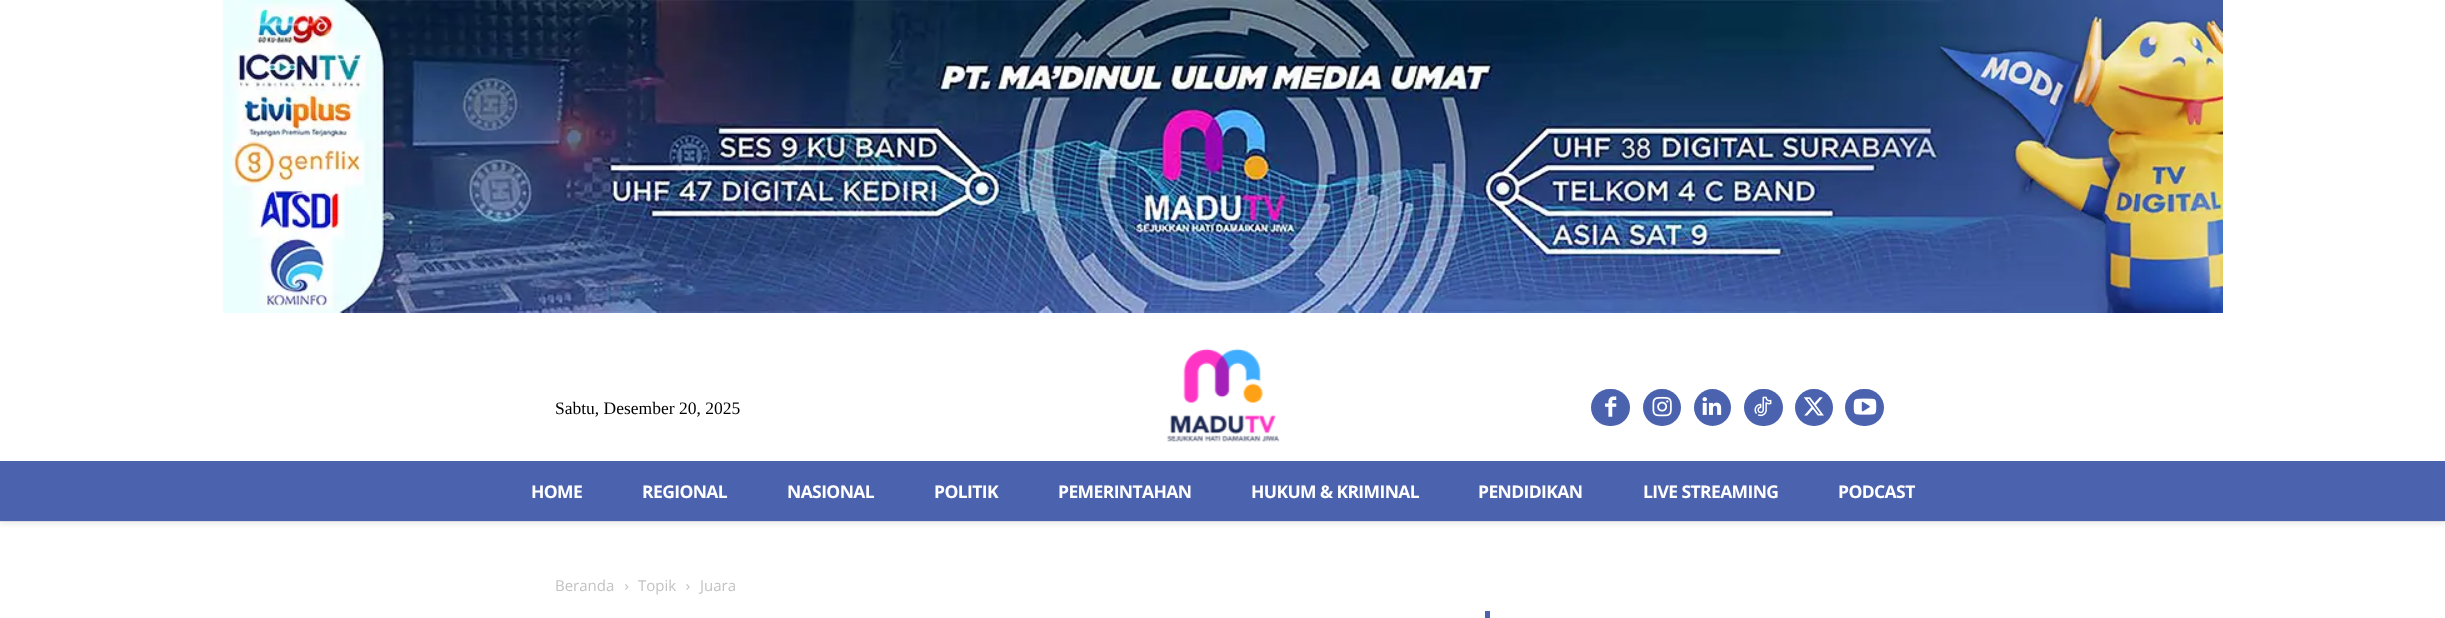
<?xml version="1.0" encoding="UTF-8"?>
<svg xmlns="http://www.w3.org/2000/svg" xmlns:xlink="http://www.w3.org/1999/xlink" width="2445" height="618">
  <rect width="100%" height="100%" fill="#ffffff" />
  <image x="223" y="0" width="2000" height="313" xlink:href="image1.png" />
  <image x="1166" y="348" width="114" height="94" xlink:href="image2.png" />
  <rect x="1591" y="389" width="39" height="37" rx="18.5" fill="#4b63af" />
  <image x="1605" y="396" width="12" height="21" xlink:href="image3.png" />
  <rect x="1643" y="389" width="38" height="37" rx="18.5" fill="#4b63af" />
  <image x="1652" y="396" width="20" height="21" xlink:href="image4.png" />
  <circle cx="1712.5" cy="407.5" r="18.5" fill="#4b63af" />
  <image x="1702" y="397" width="20" height="18" xlink:href="image5.png" />
  <rect x="1744" y="389" width="39" height="37" rx="18.5" fill="#4b63af" />
  <image x="1754" y="396" width="18" height="21" xlink:href="image6.png" />
  <rect x="1795" y="389" width="38" height="37" rx="18.5" fill="#4b63af" />
  <image x="1803" y="397" width="21" height="19" xlink:href="image7.png" />
  <rect x="1845" y="389" width="39" height="37" rx="18.5" fill="#4b63af" />
  <image x="1853" y="398" width="24" height="17" xlink:href="image8.png" />
  <rect y="521" width="2445" height="1" fill="#eaeaea" />
  <rect y="464" width="2445" height="61" fill="#000000" fill-opacity="0.06" filter="blur(2.5px)" />
  <rect y="461" width="2445" height="60" fill="#4b63af" />
  <image x="625" y="584" width="4" height="6" xlink:href="image9.png" />
  <image x="686" y="584" width="4" height="6" xlink:href="image10.png" />
  <rect x="1485" y="611" width="5" height="7" fill="#4b63af" />
  <text x="555" y="414" style="font-family: Liberation Serif; font-size: 17.5px; fill: #000000">Sabtu, Desember 20, 2025</text>
  <text x="531" y="498" style="font-family: Open Sans; font-size: 17.5px; font-weight: bold; letter-spacing: -0.6px; fill: #ffffff">HOME</text>
  <text x="642" y="498" style="font-family: Open Sans; font-size: 17.5px; font-weight: bold; letter-spacing: -0.6px; fill: #ffffff">REGIONAL</text>
  <text x="787" y="498" style="font-family: Open Sans; font-size: 17.5px; font-weight: bold; letter-spacing: -0.6px; fill: #ffffff">NASIONAL</text>
  <text x="934" y="498" style="font-family: Open Sans; font-size: 17.5px; font-weight: bold; letter-spacing: -0.6px; fill: #ffffff">POLITIK</text>
  <text x="1058" y="498" style="font-family: Open Sans; font-size: 17.5px; font-weight: bold; letter-spacing: -0.6px; fill: #ffffff">PEMERINTAHAN</text>
  <text x="1251" y="498" style="font-family: Open Sans; font-size: 17.5px; font-weight: bold; letter-spacing: -0.6px; fill: #ffffff">HUKUM &amp; KRIMINAL</text>
  <text x="1478" y="498" style="font-family: Open Sans; font-size: 17.5px; font-weight: bold; letter-spacing: -0.6px; fill: #ffffff">PENDIDIKAN</text>
  <text x="1643" y="498" style="font-family: Open Sans; font-size: 17.5px; font-weight: bold; letter-spacing: -0.6px; fill: #ffffff">LIVE STREAMING</text>
  <text x="1838" y="498" style="font-family: Open Sans; font-size: 17.5px; font-weight: bold; letter-spacing: -0.6px; fill: #ffffff">PODCAST</text>
  <text x="555" y="591" style="font-family: Open Sans; font-size: 15px; fill: #c3c3c3">Beranda</text>
  <text x="638" y="591" style="font-family: Open Sans; font-size: 15px; fill: #c3c3c3">Topik</text>
  <text x="700" y="591" style="font-family: Open Sans; font-size: 15px; fill: #c3c3c3">Juara</text>
</svg>
